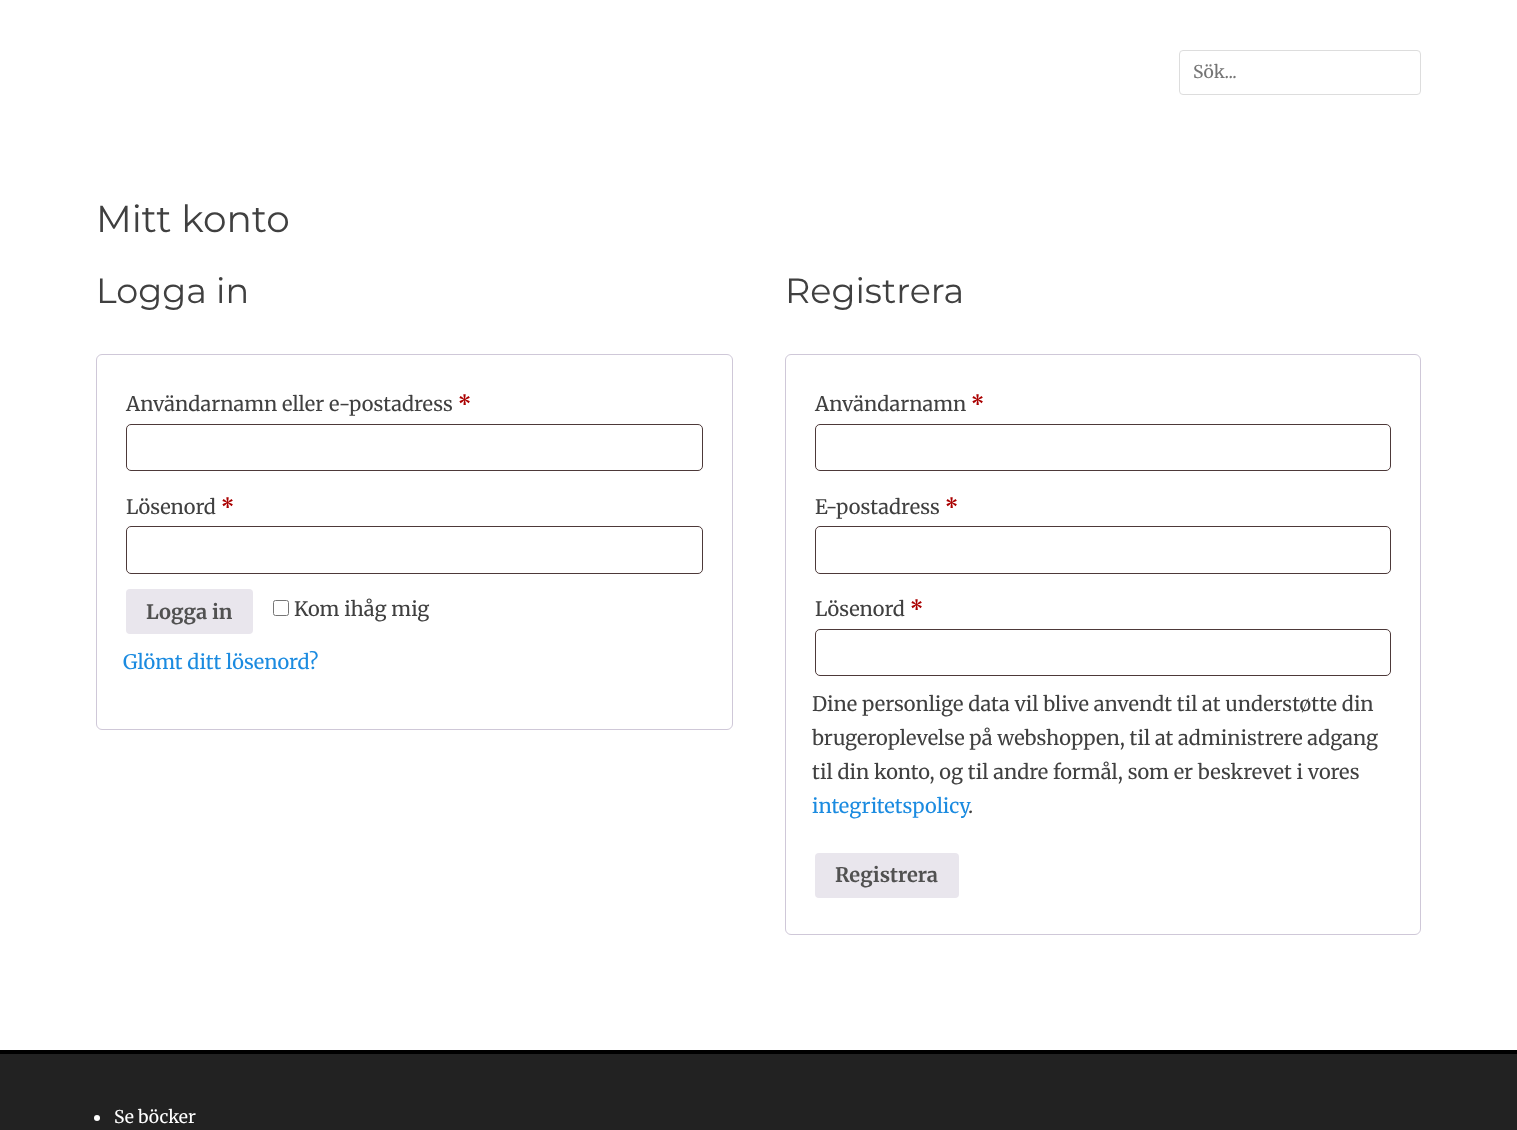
<?xml version="1.0" encoding="UTF-8"?>
<svg xmlns="http://www.w3.org/2000/svg" xmlns:xlink="http://www.w3.org/1999/xlink" width="1517" height="1130">
  <rect width="100%" height="100%" fill="#ffffff" />
  <rect x="1179.5" y="50.5" width="241" height="44" rx="3.5" fill="none" stroke="#dddddd" />
  <rect x="96.5" y="354.5" width="636" height="375" rx="5.5" fill="none" stroke="#cfc8d8" />
  <rect x="126.5" y="424.5" width="576" height="46" rx="4.5" fill="none" stroke="#4d3939" />
  <rect x="126.5" y="526.5" width="576" height="47" rx="4.5" fill="none" stroke="#4d3939" />
  <rect x="126" y="589" width="127" height="45" rx="4" fill="#e9e6ed" />
  <rect x="273.5" y="600.5" width="15" height="15" rx="2" fill="none" stroke="#767676" />
  <rect x="785.5" y="354.5" width="635" height="580" rx="5.5" fill="none" stroke="#cfc8d8" />
  <rect x="815.5" y="424.5" width="575" height="46" rx="4.5" fill="none" stroke="#4d3939" />
  <rect x="815.5" y="526.5" width="575" height="47" rx="4.5" fill="none" stroke="#4d3939" />
  <rect x="815.5" y="629.5" width="575" height="46" rx="4.5" fill="none" stroke="#4d3939" />
  <rect x="815" y="853" width="144" height="45" rx="4" fill="#e9e6ed" />
  <rect y="1054" width="1517" height="76" fill="#222222" />
  <rect y="1050" width="1517" height="4" fill="#000000" />
  <circle cx="97" cy="1118" r="3" fill="#ffffff" />
  <text x="1193" y="78" style="font-family: Merriweather; font-size: 17.5px; fill: #757575">Sök...</text>
  <text x="96" y="232" style="font-family: Montserrat; font-size: 37.5px; fill: #404040">Mitt konto</text>
  <text x="96" y="303" style="font-family: Montserrat; font-size: 35px; fill: #404040">Logga in</text>
  <text x="126" y="411" style="font-family: Merriweather; font-size: 20px; fill: #404040">Användarnamn eller e-postadress</text>
  <text x="458" y="411" style="font-family: Merriweather; font-size: 20px; font-weight: bold; fill: #aa0000">*</text>
  <text x="126" y="514" style="font-family: Merriweather; font-size: 20px; fill: #404040">Lösenord</text>
  <text x="221" y="514" style="font-family: Merriweather; font-size: 20px; font-weight: bold; fill: #aa0000">*</text>
  <text x="146" y="619" style="font-family: Merriweather; font-size: 20px; font-weight: bold; fill: #515151">Logga in</text>
  <text x="294" y="616" style="font-family: Merriweather; font-size: 20px; fill: #404040">Kom ihåg mig</text>
  <text x="123" y="669" style="font-family: Merriweather; font-size: 20px; fill: #1b8be0">Glömt ditt lösenord?</text>
  <text x="785" y="303" style="font-family: Montserrat; font-size: 35px; fill: #404040">Registrera</text>
  <text x="815" y="411" style="font-family: Merriweather; font-size: 20px; fill: #404040">Användarnamn</text>
  <text x="971" y="411" style="font-family: Merriweather; font-size: 20px; font-weight: bold; fill: #aa0000">*</text>
  <text x="815" y="514" style="font-family: Merriweather; font-size: 20px; fill: #404040">E-postadress</text>
  <text x="945" y="514" style="font-family: Merriweather; font-size: 20px; font-weight: bold; fill: #aa0000">*</text>
  <text x="815" y="616" style="font-family: Merriweather; font-size: 20px; fill: #404040">Lösenord</text>
  <text x="910" y="616" style="font-family: Merriweather; font-size: 20px; font-weight: bold; fill: #aa0000">*</text>
  <text x="812" y="711" style="font-family: Merriweather; font-size: 20px; fill: #404040">Dine personlige data vil blive anvendt til at understøtte din</text>
  <text x="812" y="745" style="font-family: Merriweather; font-size: 20px; fill: #404040">brugeroplevelse på webshoppen, til at administrere adgang</text>
  <text x="812" y="779" style="font-family: Merriweather; font-size: 20px; fill: #404040">til din konto, og til andre formål, som er beskrevet i vores</text>
  <text x="812" y="813" style="font-family: Merriweather; font-size: 20px; fill: #1b8be0">integritetspolicy</text>
  <text x="968" y="813" style="font-family: Merriweather; font-size: 20px; fill: #404040">.</text>
  <text x="835" y="882" style="font-family: Merriweather; font-size: 20px; font-weight: bold; fill: #515151">Registrera</text>
  <text x="114" y="1123" style="font-family: Merriweather; font-size: 17.5px; fill: #ffffff">Se böcker</text>
</svg>
